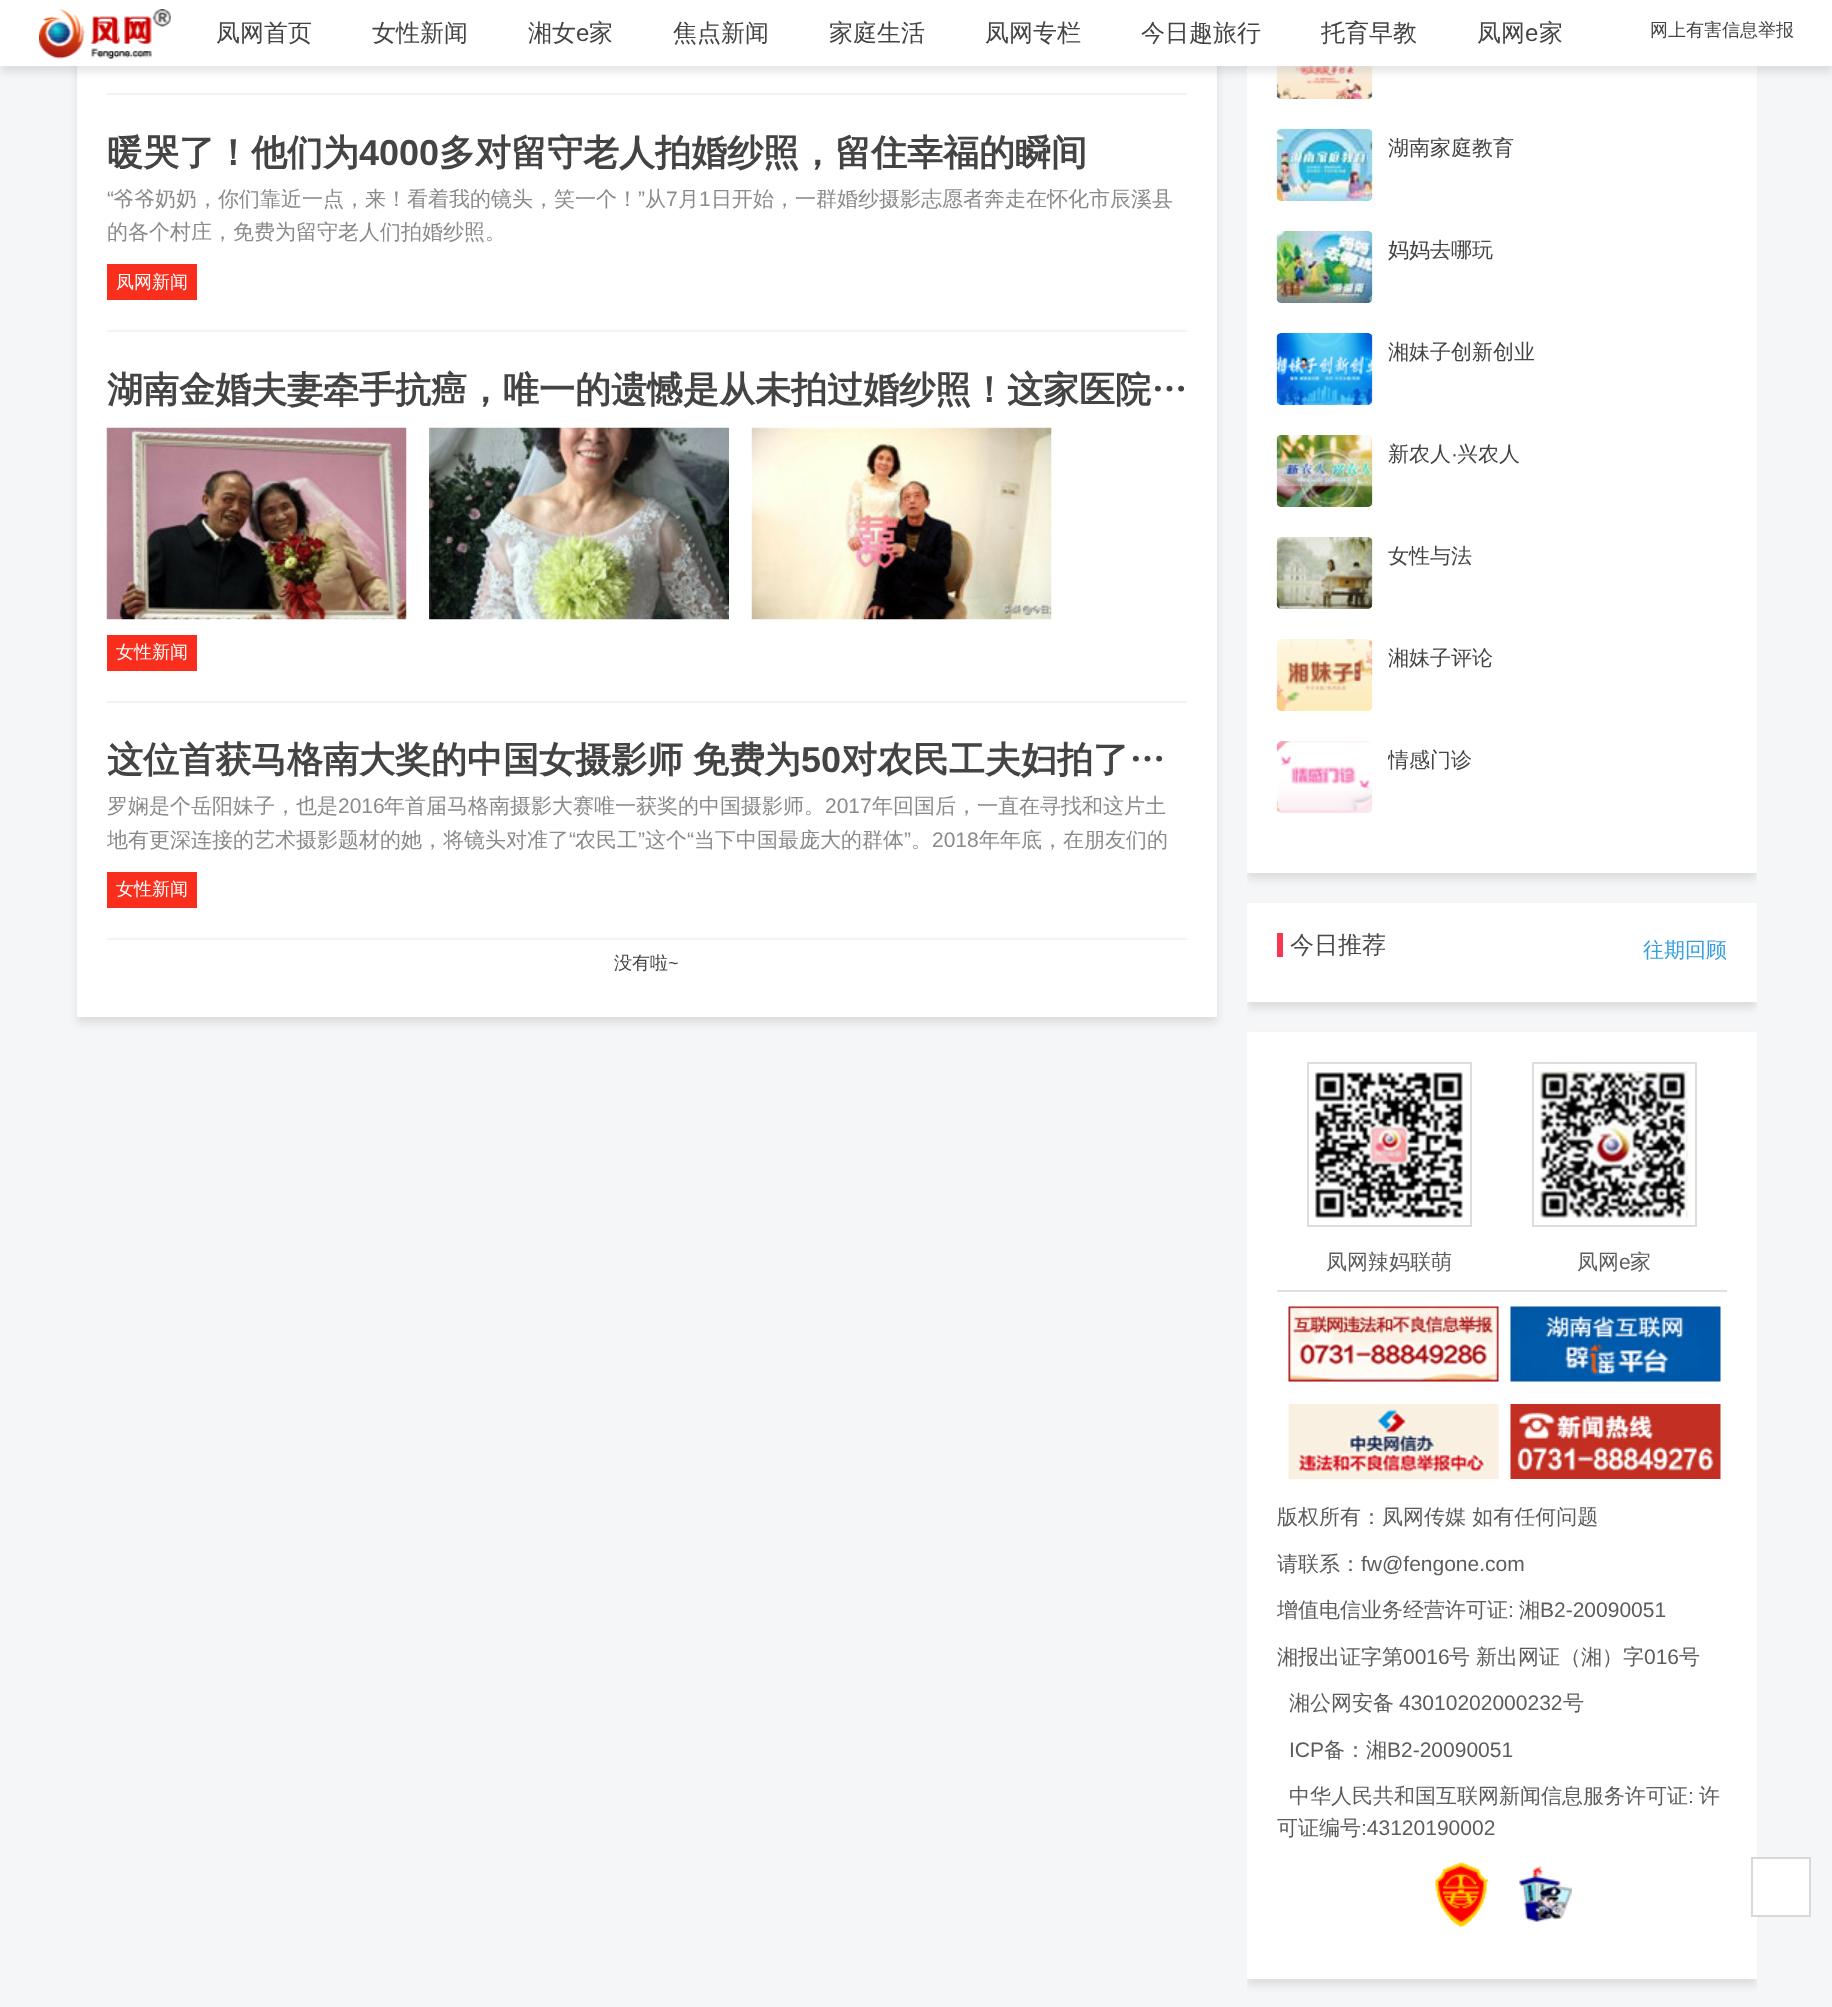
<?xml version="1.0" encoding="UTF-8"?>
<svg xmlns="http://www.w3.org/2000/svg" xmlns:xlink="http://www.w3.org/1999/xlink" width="1832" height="2007">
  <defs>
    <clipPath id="clip1"><rect x="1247" y="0" width="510" height="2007" /></clipPath>
    <clipPath id="clip2"><rect x="107" y="789" width="1080" height="68" /></clipPath>
    <clipPath id="clip3"><rect x="1388" y="741" width="339" height="72" /></clipPath>
    <clipPath id="clip4"><rect x="1277" y="1292" width="450" height="654" /></clipPath>
  </defs>
  <rect width="100%" height="100%" fill="#f5f6f7" />
  <rect x="77" y="-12" width="1140" height="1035" fill="#000000" fill-opacity="0.1" filter="blur(4px)" />
  <rect x="77" y="66" width="1140" height="951" fill="#ffffff" />
  <g clip-path="url(#clip1)">
    <rect x="1247" y="-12" width="510" height="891" fill="#000000" fill-opacity="0.1" filter="blur(4px)" />
  </g>
  <rect x="1247" y="66" width="510" height="807" fill="#ffffff" />
  <image x="1276" y="66" width="97" height="33" xlink:href="image5.png" />
  <rect y="6" width="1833" height="66" fill="#000000" fill-opacity="0.1" filter="blur(4px)" />
  <rect width="1832" height="66" fill="#ffffff" />
  <image x="39" y="9" width="132" height="50" xlink:href="image1.png" />
  <rect x="107" y="93" width="1080" height="2" fill="#f3f3f3" />
  <rect x="107" y="330" width="1080" height="2" fill="#f3f3f3" />
  <rect x="107" y="264" width="90" height="36" fill="#f92e1d" />
  <rect x="107" y="701" width="1080" height="2" fill="#f3f3f3" />
  <image x="106" y="427" width="301" height="193" xlink:href="image2.png" />
  <image x="429" y="427" width="300" height="193" xlink:href="image3.png" />
  <image x="751" y="427" width="301" height="193" xlink:href="image4.png" />
  <rect x="107" y="635" width="90" height="36" fill="#f92e1d" />
  <rect x="107" y="938" width="1080" height="2" fill="#f3f3f3" />
  <rect x="107" y="872" width="90" height="36" fill="#f92e1d" />
  <image x="1276" y="129" width="97" height="72" xlink:href="image6.png" />
  <image x="1276" y="231" width="97" height="72" xlink:href="image7.png" />
  <image x="1276" y="333" width="97" height="72" xlink:href="image8.png" />
  <image x="1276" y="435" width="97" height="72" xlink:href="image9.png" />
  <image x="1276" y="537" width="97" height="72" xlink:href="image10.png" />
  <image x="1276" y="639" width="97" height="72" xlink:href="image11.png" />
  <image x="1276" y="741" width="97" height="72" xlink:href="image12.png" />
  <g clip-path="url(#clip1)">
    <rect x="1247" y="909" width="510" height="99" fill="#000000" fill-opacity="0.1" filter="blur(4px)" />
  </g>
  <rect x="1247" y="903" width="510" height="99" fill="#ffffff" />
  <rect x="1277" y="933" width="6" height="24" fill="#f63756" />
  <g clip-path="url(#clip1)">
    <rect x="1247" y="1038" width="510" height="947" fill="#000000" fill-opacity="0.1" filter="blur(4px)" />
  </g>
  <rect x="1247" y="1032" width="510" height="947" fill="#ffffff" />
  <rect x="1308" y="1063" width="163" height="163" fill="none" stroke="#dddddd" stroke-width="2" />
  <image x="1315" y="1071" width="148" height="147" xlink:href="image13.png" />
  <rect x="1533" y="1063" width="163" height="163" fill="none" stroke="#dddddd" stroke-width="2" />
  <image x="1540" y="1071" width="148" height="147" xlink:href="image14.png" />
  <rect x="1277" y="1290" width="450" height="2" fill="#e0e0e0" />
  <image x="1288" y="1306" width="211" height="76" xlink:href="image15.png" />
  <image x="1510" y="1306" width="211" height="76" xlink:href="image16.png" />
  <image x="1288" y="1404" width="211" height="75" xlink:href="image17.png" />
  <image x="1510" y="1404" width="211" height="75" xlink:href="image18.png" />
  <image x="1435" y="1862" width="54" height="66" xlink:href="image19.png" />
  <image x="1519" y="1865" width="53" height="57" xlink:href="image20.png" />
  <rect x="1757" y="1859" width="52" height="56" fill="#ffffff" />
  <rect x="1752" y="1858" width="58" height="58" fill="none" stroke="#d9d9d9" stroke-width="2" />
  <text x="216" y="41" style="font-family: WenQuanYi Zen Hei; font-size: 24px; font-weight: 500; fill: #444444">凤网首页</text>
  <text x="372" y="41" style="font-family: WenQuanYi Zen Hei; font-size: 24px; font-weight: 500; fill: #444444">女性新闻</text>
  <text x="528" y="41" style="font-family: WenQuanYi Zen Hei; font-size: 24px; font-weight: 500; fill: #444444">湘女</text>
  <text x="576" y="41" style="font-family: Liberation Sans; font-size: 24px; fill: #444444">e</text>
  <text x="589" y="41" style="font-family: WenQuanYi Zen Hei; font-size: 24px; font-weight: 500; fill: #444444">家</text>
  <text x="673" y="41" style="font-family: WenQuanYi Zen Hei; font-size: 24px; font-weight: 500; fill: #444444">焦点新闻</text>
  <text x="829" y="41" style="font-family: WenQuanYi Zen Hei; font-size: 24px; font-weight: 500; fill: #444444">家庭生活</text>
  <text x="985" y="41" style="font-family: WenQuanYi Zen Hei; font-size: 24px; font-weight: 500; fill: #444444">凤网专栏</text>
  <text x="1141" y="41" style="font-family: WenQuanYi Zen Hei; font-size: 24px; font-weight: 500; fill: #444444">今日趣旅行</text>
  <text x="1321" y="41" style="font-family: WenQuanYi Zen Hei; font-size: 24px; font-weight: 500; fill: #444444">托育早教</text>
  <text x="1477" y="41" style="font-family: WenQuanYi Zen Hei; font-size: 24px; font-weight: 500; fill: #444444">凤网</text>
  <text x="1525" y="41" style="font-family: Liberation Sans; font-size: 24px; fill: #444444">e</text>
  <text x="1539" y="41" style="font-family: WenQuanYi Zen Hei; font-size: 24px; font-weight: 500; fill: #444444">家</text>
  <text x="1650" y="36" style="font-family: WenQuanYi Zen Hei; font-size: 18px; font-weight: 500; fill: #444444">网上有害信息举报</text>
  <text x="107" y="165" style="font-family: WenQuanYi Zen Hei; font-size: 36px; font-weight: bold; fill: #444444">暖哭了！他们为</text>
  <text x="359" y="165" style="font-family: Liberation Sans; font-size: 36px; font-weight: bold; fill: #444444">4000</text>
  <text x="439" y="165" style="font-family: WenQuanYi Zen Hei; font-size: 36px; font-weight: bold; fill: #444444">多对留守老人拍婚纱照，留住幸福的瞬间</text>
  <text x="107" y="206" style="font-family: Liberation Sans; font-size: 21px; fill: #8a8a8a">“</text>
  <text x="113" y="206" style="font-family: WenQuanYi Zen Hei; font-size: 21px; font-weight: 500; fill: #8a8a8a">爷爷奶奶，你们靠近一点，来！看着我的镜头，笑一个！</text>
  <text x="638" y="206" style="font-family: Liberation Sans; font-size: 21px; fill: #8a8a8a">”</text>
  <text x="645" y="206" style="font-family: WenQuanYi Zen Hei; font-size: 21px; font-weight: 500; fill: #8a8a8a">从</text>
  <text x="666" y="206" style="font-family: Liberation Sans; font-size: 21px; fill: #8a8a8a">7</text>
  <text x="678" y="206" style="font-family: WenQuanYi Zen Hei; font-size: 21px; font-weight: 500; fill: #8a8a8a">月</text>
  <text x="699" y="206" style="font-family: Liberation Sans; font-size: 21px; fill: #8a8a8a">1</text>
  <text x="711" y="206" style="font-family: WenQuanYi Zen Hei; font-size: 21px; font-weight: 500; fill: #8a8a8a">日开始，一群婚纱摄影志愿者奔走在怀化市辰溪县</text>
  <text x="107" y="239" style="font-family: WenQuanYi Zen Hei; font-size: 21px; font-weight: 500; fill: #8a8a8a">的各个村庄，免费为留守老人们拍婚纱照。</text>
  <text x="116" y="288" style="font-family: WenQuanYi Zen Hei; font-size: 18px; font-weight: 500; fill: #ffffff">凤网新闻</text>
  <text x="107" y="402" style="font-family: WenQuanYi Zen Hei; font-size: 36px; font-weight: bold; fill: #444444">湖南金婚夫妻牵手抗癌，唯一的遗憾是从未拍过婚纱照！这家医院…</text>
  <text x="116" y="658" style="font-family: WenQuanYi Zen Hei; font-size: 18px; font-weight: 500; fill: #ffffff">女性新闻</text>
  <text x="107" y="772" word-spacing="-1" style="font-family: WenQuanYi Zen Hei; font-size: 36px; font-weight: bold; fill: #444444">这位首获马格南大奖的中国女摄影师 免费为</text>
  <text x="801" y="772" style="font-family: Liberation Sans; font-size: 36px; font-weight: bold; fill: #444444">50</text>
  <text x="841" y="772" style="font-family: WenQuanYi Zen Hei; font-size: 36px; font-weight: bold; fill: #444444">对农民工夫妇拍了…</text>
  <text x="107" y="813" style="font-family: WenQuanYi Zen Hei; font-size: 21px; font-weight: 500; fill: #8a8a8a">罗娴是个岳阳妹子，也是</text>
  <text x="338" y="813" style="font-family: Liberation Sans; font-size: 21px; fill: #8a8a8a">2016</text>
  <text x="384" y="813" style="font-family: WenQuanYi Zen Hei; font-size: 21px; font-weight: 500; fill: #8a8a8a">年首届马格南摄影大赛唯一获奖的中国摄影师。</text>
  <text x="825" y="813" style="font-family: Liberation Sans; font-size: 21px; fill: #8a8a8a">2017</text>
  <text x="872" y="813" style="font-family: WenQuanYi Zen Hei; font-size: 21px; font-weight: 500; fill: #8a8a8a">年回国后，一直在寻找和这片土</text>
  <g clip-path="url(#clip2)">
    <text x="107" y="847" style="font-family: WenQuanYi Zen Hei; font-size: 21px; font-weight: 500; fill: #8a8a8a">地有更深连接的艺术摄影题材的她，将镜头对准了</text>
  </g>
  <text x="569" y="847" style="font-family: Liberation Sans; font-size: 21px; fill: #8a8a8a">“</text>
  <text x="575" y="847" style="font-family: WenQuanYi Zen Hei; font-size: 21px; font-weight: 500; fill: #8a8a8a">农民工</text>
  <text x="638" y="847" style="font-family: Liberation Sans; font-size: 21px; fill: #8a8a8a">”</text>
  <text x="645" y="847" style="font-family: WenQuanYi Zen Hei; font-size: 21px; font-weight: 500; fill: #8a8a8a">这个</text>
  <text x="687" y="847" style="font-family: Liberation Sans; font-size: 21px; fill: #8a8a8a">“</text>
  <text x="694" y="847" style="font-family: WenQuanYi Zen Hei; font-size: 21px; font-weight: 500; fill: #8a8a8a">当下中国最庞大的群体</text>
  <text x="904" y="847" style="font-family: Liberation Sans; font-size: 21px; fill: #8a8a8a">”</text>
  <text x="911" y="847" style="font-family: WenQuanYi Zen Hei; font-size: 21px; font-weight: 500; fill: #8a8a8a">。</text>
  <text x="932" y="847" style="font-family: Liberation Sans; font-size: 21px; fill: #8a8a8a">2018</text>
  <text x="979" y="847" style="font-family: WenQuanYi Zen Hei; font-size: 21px; font-weight: 500; fill: #8a8a8a">年年底，在朋友们的</text>
  <text x="116" y="895" style="font-family: WenQuanYi Zen Hei; font-size: 18px; font-weight: 500; fill: #ffffff">女性新闻</text>
  <text x="614" y="969" style="font-family: WenQuanYi Zen Hei; font-size: 18px; font-weight: 500; fill: #444444">没有啦</text>
  <text x="668" y="969" style="font-family: Liberation Sans; font-size: 18px; fill: #444444">~</text>
  <text x="1388" y="155" style="font-family: WenQuanYi Zen Hei; font-size: 21px; font-weight: 500; fill: #444444">湖南家庭教育</text>
  <text x="1388" y="257" style="font-family: WenQuanYi Zen Hei; font-size: 21px; font-weight: 500; fill: #444444">妈妈去哪玩</text>
  <text x="1388" y="359" style="font-family: WenQuanYi Zen Hei; font-size: 21px; font-weight: 500; fill: #444444">湘妹子创新创业</text>
  <text x="1388" y="461" style="font-family: WenQuanYi Zen Hei; font-size: 21px; font-weight: 500; fill: #444444">新农人</text>
  <text x="1451" y="461" style="font-family: Liberation Sans; font-size: 21px; fill: #444444">·</text>
  <text x="1457" y="461" style="font-family: WenQuanYi Zen Hei; font-size: 21px; font-weight: 500; fill: #444444">兴农人</text>
  <text x="1388" y="563" style="font-family: WenQuanYi Zen Hei; font-size: 21px; font-weight: 500; fill: #444444">女性与法</text>
  <text x="1388" y="665" style="font-family: WenQuanYi Zen Hei; font-size: 21px; font-weight: 500; fill: #444444">湘妹子评论</text>
  <g clip-path="url(#clip3)">
    <text x="1388" y="767" style="font-family: WenQuanYi Zen Hei; font-size: 21px; font-weight: 500; fill: #444444">情感门诊</text>
  </g>
  <text x="1290" y="953" style="font-family: WenQuanYi Zen Hei; font-size: 24px; font-weight: 500; fill: #4a4a4a">今日推荐</text>
  <text x="1643" y="957" style="font-family: WenQuanYi Zen Hei; font-size: 21px; font-weight: 500; fill: #349edf">往期回顾</text>
  <text x="1326" y="1269" style="font-family: WenQuanYi Zen Hei; font-size: 21px; font-weight: 500; fill: #5c5c5c">凤网辣妈联萌</text>
  <text x="1577" y="1269" style="font-family: WenQuanYi Zen Hei; font-size: 21px; font-weight: 500; fill: #5c5c5c">凤网</text>
  <text x="1619" y="1269" style="font-family: Liberation Sans; font-size: 21px; fill: #5c5c5c">e</text>
  <text x="1630" y="1269" style="font-family: WenQuanYi Zen Hei; font-size: 21px; font-weight: 500; fill: #5c5c5c">家</text>
  <text x="1277" y="1524" style="font-family: WenQuanYi Zen Hei; font-size: 21px; font-weight: 500; fill: #5c5c5c">版权所有：凤网传媒 如有任何问题</text>
  <text x="1277" y="1571" style="font-family: WenQuanYi Zen Hei; font-size: 21px; font-weight: 500; fill: #5c5c5c">请联系：</text>
  <text x="1361" y="1571" style="font-family: Liberation Sans; font-size: 21px; fill: #5c5c5c">fw@fengone.com</text>
  <g clip-path="url(#clip4)">
    <text x="1277" y="1617" style="font-family: WenQuanYi Zen Hei; font-size: 21px; font-weight: 500; fill: #5c5c5c">增值电信业务经营许可证</text>
  </g>
  <text x="1508" y="1617" style="font-family: Liberation Sans; font-size: 21px; fill: #5c5c5c">:</text>
  <text x="1519" y="1617" style="font-family: WenQuanYi Zen Hei; font-size: 21px; font-weight: 500; fill: #5c5c5c">湘</text>
  <text x="1540" y="1617" style="font-family: Liberation Sans; font-size: 21px; fill: #5c5c5c">B2-20090051</text>
  <text x="1277" y="1664" style="font-family: WenQuanYi Zen Hei; font-size: 21px; font-weight: 500; fill: #5c5c5c">湘报出证字第</text>
  <text x="1403" y="1664" style="font-family: Liberation Sans; font-size: 21px; fill: #5c5c5c">0016</text>
  <text x="1449" y="1664" style="font-family: WenQuanYi Zen Hei; font-size: 21px; font-weight: 500; fill: #5c5c5c">号</text>
  <text x="1476" y="1664" style="font-family: WenQuanYi Zen Hei; font-size: 21px; font-weight: 500; fill: #5c5c5c">新出网证（湘）字</text>
  <text x="1644" y="1664" style="font-family: Liberation Sans; font-size: 21px; fill: #5c5c5c">016</text>
  <text x="1679" y="1664" style="font-family: WenQuanYi Zen Hei; font-size: 21px; font-weight: 500; fill: #5c5c5c">号</text>
  <text x="1289" y="1710" style="font-family: WenQuanYi Zen Hei; font-size: 21px; font-weight: 500; fill: #5c5c5c">湘公网安备</text>
  <text x="1399" y="1710" style="font-family: Liberation Sans; font-size: 21px; fill: #5c5c5c">43010202000232</text>
  <text x="1563" y="1710" style="font-family: WenQuanYi Zen Hei; font-size: 21px; font-weight: 500; fill: #5c5c5c">号</text>
  <text x="1289" y="1757" style="font-family: Liberation Sans; font-size: 21px; fill: #5c5c5c">ICP</text>
  <text x="1324" y="1757" style="font-family: WenQuanYi Zen Hei; font-size: 21px; font-weight: 500; fill: #5c5c5c">备：湘</text>
  <text x="1387" y="1757" style="font-family: Liberation Sans; font-size: 21px; fill: #5c5c5c">B2-20090051</text>
  <text x="1289" y="1803" style="font-family: WenQuanYi Zen Hei; font-size: 21px; font-weight: 500; fill: #5c5c5c">中华人民共和国互联网新闻信息服务许可证</text>
  <text x="1688" y="1803" style="font-family: Liberation Sans; font-size: 21px; fill: #5c5c5c">:</text>
  <text x="1699" y="1803" style="font-family: WenQuanYi Zen Hei; font-size: 21px; font-weight: 500; fill: #5c5c5c">许</text>
  <text x="1277" y="1835" style="font-family: WenQuanYi Zen Hei; font-size: 21px; font-weight: 500; fill: #5c5c5c">可证编号</text>
  <text x="1361" y="1835" style="font-family: Liberation Sans; font-size: 21px; fill: #5c5c5c">:43120190002</text>
</svg>
